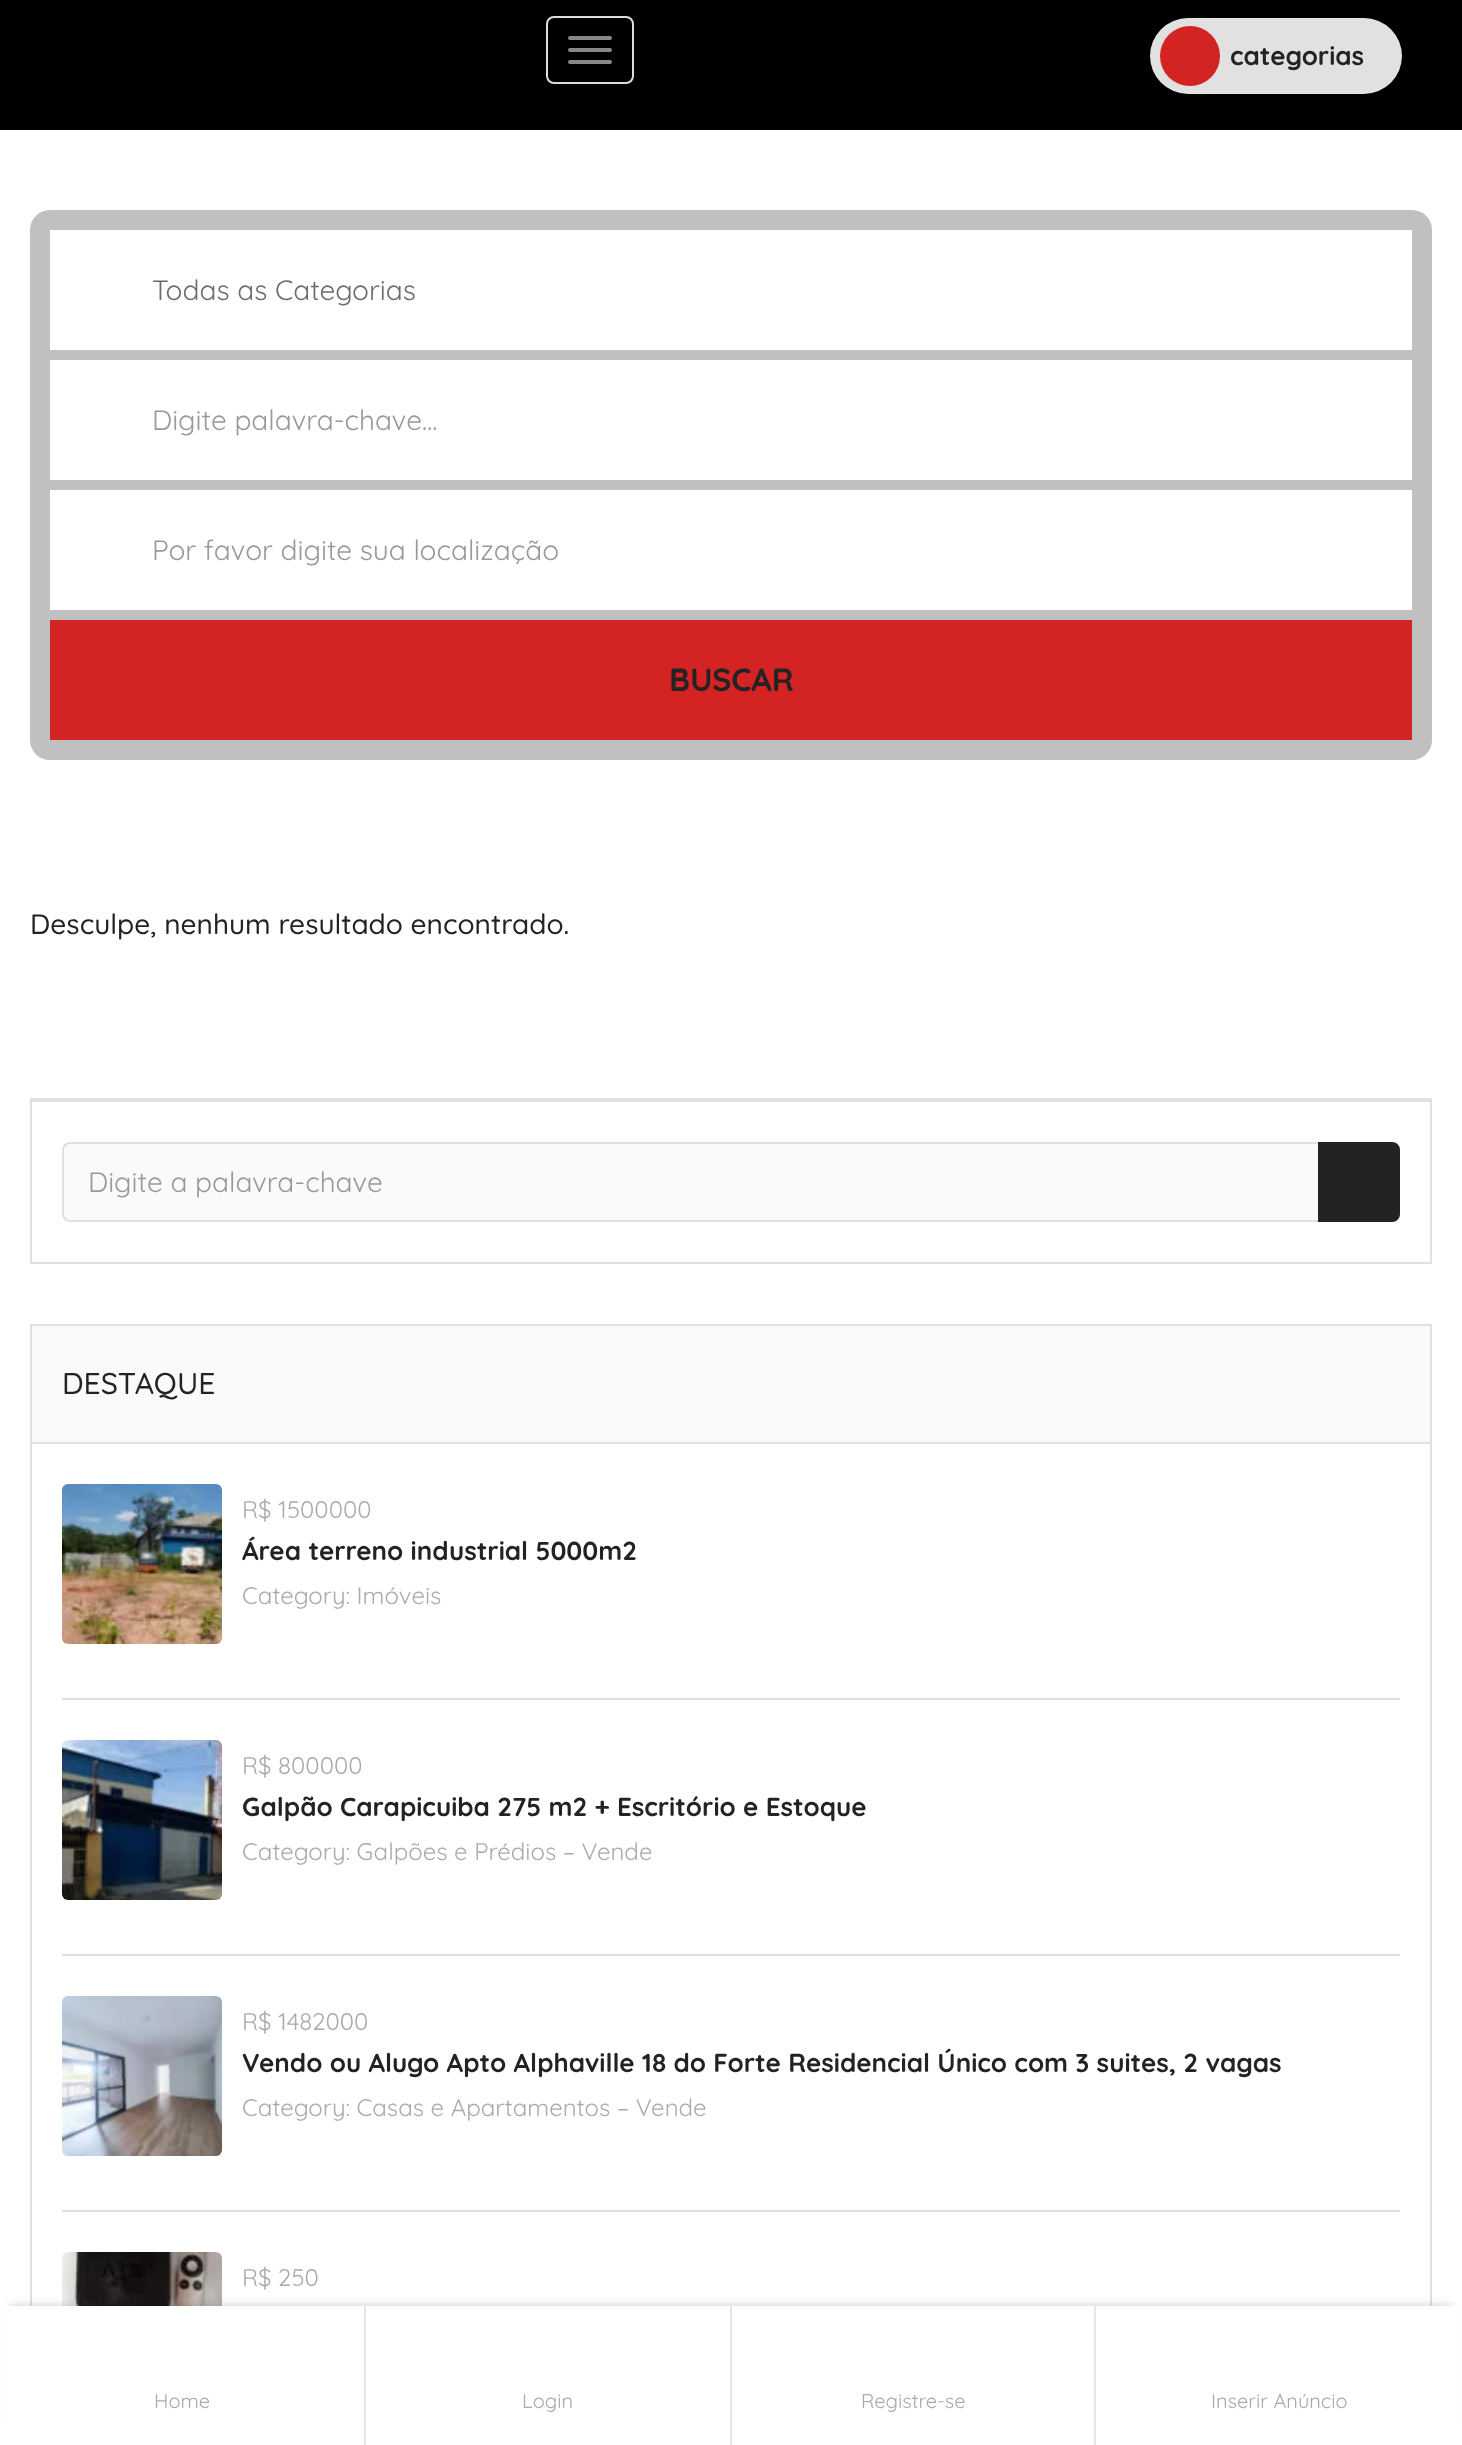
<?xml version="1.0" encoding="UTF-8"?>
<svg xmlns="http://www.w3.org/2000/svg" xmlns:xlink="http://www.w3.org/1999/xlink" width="1462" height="2445">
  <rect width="100%" height="100%" fill="#ffffff" />
  <rect width="1462" height="130" fill="#000000" />
  <rect x="547" y="17" width="86" height="66" rx="7" fill="none" stroke="#dddddd" stroke-width="2" />
  <rect x="568" y="36" width="44" height="4" rx="2" fill="#888888" />
  <rect x="568" y="48" width="44" height="4" rx="2" fill="#888888" />
  <rect x="568" y="60" width="44" height="4" rx="2" fill="#888888" />
  <rect x="1150" y="18" width="252" height="76" rx="38" fill="#e1e1e1" />
  <circle cx="1190" cy="56" r="30" fill="#d32323" />
  <rect x="31" y="1325" width="1400" height="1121" fill="none" stroke="#e0e0e0" stroke-width="2" />
  <image x="62" y="2252" width="160" height="54" xlink:href="image4.png" />
  <rect x="10" y="2306" width="1442" height="120" fill="#000000" fill-opacity="0.2" filter="blur(5px)" />
  <rect x="2" y="2306" width="1458" height="139" fill="#ffffff" />
  <rect x="364" y="2306" width="2" height="139" fill="#e6e6e6" />
  <rect x="730" y="2306" width="2" height="139" fill="#e6e6e6" />
  <rect x="1094" y="2306" width="2" height="139" fill="#e6e6e6" />
  <rect x="30" y="210" width="1402" height="550" rx="20" fill="#c0c0c0" />
  <rect x="50" y="230" width="1362" height="120" fill="#ffffff" />
  <rect x="50" y="360" width="1362" height="120" fill="#ffffff" />
  <rect x="50" y="490" width="1362" height="120" fill="#ffffff" />
  <rect x="50" y="620" width="1362" height="120" fill="#d32323" />
  <rect x="30" y="1098" width="1402" height="2" fill="#e0e0e0" />
  <rect x="31" y="1101" width="1400" height="162" fill="none" stroke="#e0e0e0" stroke-width="2" />
  <path d="M 70 1143 h 1249 v 78 h -1249 c -4 0 -7 -3 -7 -7 v -64 c 0 -4 3 -7 7 -7 z" fill="#fafafa" stroke="#e0e0e0" stroke-width="2" />
  <path d="M 1318 1142 h 74 c 4.5 0 8 3.5 8 8 v 64 c 0 4.5 -3.5 8 -8 8 h -74 z" fill="#232323" />
  <rect x="32" y="1326" width="1398" height="116" fill="#fafafa" />
  <rect x="32" y="1442" width="1398" height="2" fill="#e0e0e0" />
  <rect x="62" y="1698" width="1338" height="2" fill="#e0e0e0" />
  <image x="62" y="1484" width="160" height="160" xlink:href="image1.png" />
  <rect x="62" y="1954" width="1338" height="2" fill="#e0e0e0" />
  <image x="62" y="1740" width="160" height="160" xlink:href="image2.png" />
  <rect x="62" y="2210" width="1338" height="2" fill="#e0e0e0" />
  <image x="62" y="1996" width="160" height="160" xlink:href="image3.png" />
  <text x="1230" y="65" style="font-family: Quicksand; font-size: 26px; font-weight: bold; fill: #232323">categorias</text>
  <text x="154" y="2408" style="font-family: Quicksand; font-size: 20px; fill: #aaaaaa">Home</text>
  <text x="522" y="2408" style="font-family: Quicksand; font-size: 20px; fill: #aaaaaa">Login</text>
  <text x="861" y="2408" style="font-family: Quicksand; font-size: 20px; fill: #aaaaaa">Registre-se</text>
  <text x="1211" y="2408" style="font-family: Quicksand; font-size: 20px; fill: #aaaaaa">Inserir Anúncio</text>
  <text x="152" y="300" style="font-family: Quicksand; font-size: 28px; fill: #6c6c6c">Todas as Categorias</text>
  <text x="152" y="430" style="font-family: Quicksand; font-size: 28px; fill: #999999">Digite palavra-chave...</text>
  <text x="152" y="560" style="font-family: Quicksand; font-size: 28px; fill: #999999">Por favor digite sua localização</text>
  <text x="669" y="691" style="font-family: Quicksand; font-size: 32px; font-weight: bold; fill: #232323">BUSCAR</text>
  <text x="30" y="934" style="font-family: Quicksand; font-size: 28px; font-weight: 500; fill: #232323">Desculpe, nenhum resultado encontrado.</text>
  <text x="88" y="1192" style="font-family: Quicksand; font-size: 28px; fill: #999999">Digite a palavra-chave</text>
  <text x="62" y="1394" style="font-family: Quicksand; font-size: 30px; font-weight: 500; fill: #232323">DESTAQUE</text>
  <text x="242" y="1518" style="font-family: Quicksand; font-size: 24px; fill: #aaaaaa">R$ 1500000</text>
  <text x="242" y="1560" style="font-family: Quicksand; font-size: 26px; font-weight: bold; fill: #232323">Área terreno industrial 5000m2</text>
  <text x="242" y="1604" style="font-family: Quicksand; font-size: 24px; fill: #aaaaaa">Category: Imóveis</text>
  <text x="242" y="1774" style="font-family: Quicksand; font-size: 24px; fill: #aaaaaa">R$ 800000</text>
  <text x="242" y="1816" style="font-family: Quicksand; font-size: 26px; font-weight: bold; fill: #232323">Galpão Carapicuiba 275 m2 + Escritório e Estoque</text>
  <text x="242" y="1860" style="font-family: Quicksand; font-size: 24px; fill: #aaaaaa">Category: Galpões e Prédios – Vende</text>
  <text x="242" y="2030" style="font-family: Quicksand; font-size: 24px; fill: #aaaaaa">R$ 1482000</text>
  <text x="242" y="2072" style="font-family: Quicksand; font-size: 26px; font-weight: bold; fill: #232323">Vendo ou Alugo Apto Alphaville 18 do Forte Residencial Único com 3 suites, 2 vagas</text>
  <text x="242" y="2116" style="font-family: Quicksand; font-size: 24px; fill: #aaaaaa">Category: Casas e Apartamentos – Vende</text>
  <text x="242" y="2286" style="font-family: Quicksand; font-size: 24px; fill: #aaaaaa">R$ 250</text>
</svg>
